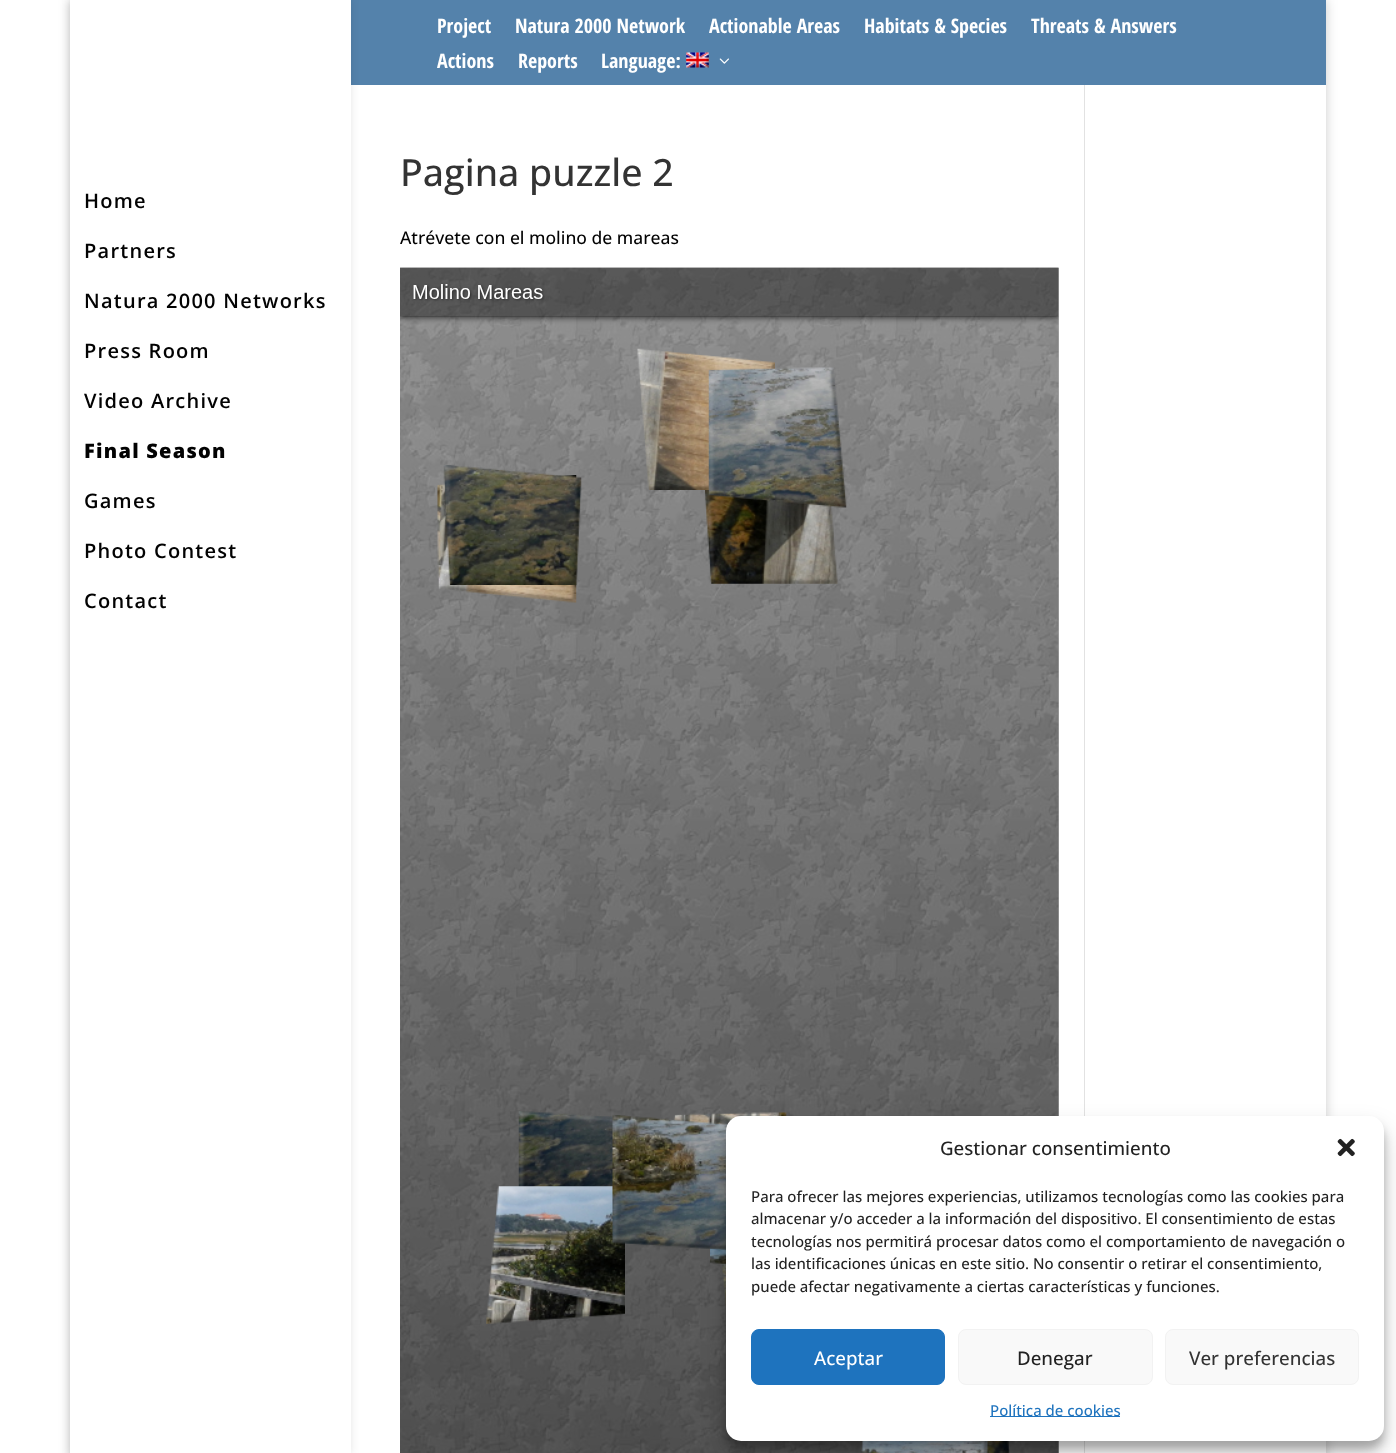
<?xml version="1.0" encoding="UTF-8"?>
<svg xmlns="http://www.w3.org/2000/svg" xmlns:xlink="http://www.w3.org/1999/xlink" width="1396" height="1453">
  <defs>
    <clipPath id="clip1"><path d="M 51 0 h 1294 v 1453 h -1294 z m 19 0 h 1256 v 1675 h -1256 z" clip-rule="evenodd" /></clipPath>
    <clipPath id="clip2"><path d="M 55 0 h 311 v 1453 h -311 z m 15 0 h 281 v 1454 h -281 z" clip-rule="evenodd" /></clipPath>
  </defs>
  <rect width="100%" height="100%" fill="#ffffff" />
  <g clip-path="url(#clip1)">
    <rect x="70" width="1256" height="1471" fill="#000000" fill-opacity="0.2" filter="blur(6px)" />
  </g>
  <rect x="351" width="975" height="85" fill="#5482ab" />
  <image x="686" y="52" width="23" height="16" xlink:href="image1.png" />
  <image x="719" y="58" width="10" height="6" xlink:href="image2.png" />
  <g clip-path="url(#clip2)">
    <rect x="70" width="281" height="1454" fill="#000000" fill-opacity="0.1" filter="blur(4.5px)" />
  </g>
  <image x="400" y="267" width="659" height="1186" xlink:href="image3.png" />
  <rect x="1084" y="85" width="1" height="1368" fill="#e2e2e2" />
  <rect x="726" y="1124" width="658" height="325" rx="15" fill="#000000" fill-opacity="0.23" filter="blur(4px)" />
  <rect x="726" y="1129" width="658" height="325" rx="15" fill="#000000" fill-opacity="0.19" filter="blur(12.5px)" />
  <rect x="726" y="1116" width="658" height="325" rx="15" fill="#ffffff" />
  <image x="1337" y="1138" width="18" height="19" xlink:href="image4.png" />
  <rect x="751.5" y="1329.5" width="193" height="55" rx="7.5" fill="#1e73be" stroke="#1e73be" />
  <rect x="958.5" y="1329.5" width="194" height="55" rx="7.5" fill="#f9f9f9" stroke="#f2f2f2" />
  <rect x="1165.5" y="1329.5" width="193" height="55" rx="7.5" fill="#f9f9f9" stroke="#f2f2f2" />
  <rect x="990" y="1416" width="130" height="1" fill="#1e73be" />
  <text x="437" y="33" style="font-family: Open Sans Condensed; font-size: 20px; font-weight: bold; fill: #ffffff">Project</text>
  <text x="515" y="33" style="font-family: Open Sans Condensed; font-size: 20px; font-weight: bold; fill: #ffffff">Natura 2000 Network</text>
  <text x="709" y="33" style="font-family: Open Sans Condensed; font-size: 20px; font-weight: bold; fill: #ffffff">Actionable Areas</text>
  <text x="864" y="33" style="font-family: Open Sans Condensed; font-size: 20px; font-weight: bold; fill: #ffffff">Habitats &amp; Species</text>
  <text x="1031" y="33" style="font-family: Open Sans Condensed; font-size: 20px; font-weight: bold; fill: #ffffff">Threats &amp; Answers</text>
  <text x="437" y="68" style="font-family: Open Sans Condensed; font-size: 20px; font-weight: bold; fill: #ffffff">Actions</text>
  <text x="518" y="68" style="font-family: Open Sans Condensed; font-size: 20px; font-weight: bold; fill: #ffffff">Reports</text>
  <text x="601" y="68" style="font-family: Open Sans Condensed; font-size: 20px; font-weight: bold; fill: #ffffff">Language:</text>
  <text x="84" y="208" style="font-family: Open Sans; font-size: 20px; font-weight: 600; letter-spacing: 1.25px; fill: #020202">Home</text>
  <text x="84" y="258" style="font-family: Open Sans; font-size: 20px; font-weight: 600; letter-spacing: 1.25px; fill: #020202">Partners</text>
  <text x="84" y="308" style="font-family: Open Sans; font-size: 20px; font-weight: 600; letter-spacing: 1.25px; fill: #020202">Natura 2000 Networks</text>
  <text x="84" y="358" style="font-family: Open Sans; font-size: 20px; font-weight: 600; letter-spacing: 1.25px; fill: #020202">Press Room</text>
  <text x="84" y="408" style="font-family: Open Sans; font-size: 20px; font-weight: 600; letter-spacing: 1.25px; fill: #020202">Video Archive</text>
  <text x="84" y="458" style="font-family: Open Sans; font-size: 20px; font-weight: 800; letter-spacing: 1.25px; fill: #020202">Final Season</text>
  <text x="84" y="508" style="font-family: Open Sans; font-size: 20px; font-weight: 600; letter-spacing: 1.25px; fill: #020202">Games</text>
  <text x="84" y="558" style="font-family: Open Sans; font-size: 20px; font-weight: 600; letter-spacing: 1.25px; fill: #020202">Photo Contest</text>
  <text x="84" y="608" style="font-family: Open Sans; font-size: 20px; font-weight: 600; letter-spacing: 1.25px; fill: #020202">Contact</text>
  <text x="400" y="186" style="font-family: Open Sans; font-size: 37.5px; font-weight: 500; fill: #333333">Pagina puzzle 2</text>
  <text x="400" y="244" style="font-family: Open Sans; font-size: 17.5px; font-weight: 500; fill: #020202">Atrévete con el molino de mareas</text>
  <text x="940" y="1155" style="font-family: Open Sans; font-size: 18.75px; font-weight: 500; fill: #222222">Gestionar consentimiento</text>
  <text x="751" y="1202" style="font-family: Open Sans; font-size: 15px; font-weight: 500; fill: #222222">Para ofrecer las mejores experiencias, utilizamos tecnologías como las cookies para</text>
  <text x="751" y="1224" style="font-family: Open Sans; font-size: 15px; font-weight: 500; fill: #222222">almacenar y/o acceder a la información del dispositivo. El consentimiento de estas</text>
  <text x="751" y="1247" style="font-family: Open Sans; font-size: 15px; font-weight: 500; fill: #222222">tecnologías nos permitirá procesar datos como el comportamiento de navegación o</text>
  <text x="751" y="1269" style="font-family: Open Sans; font-size: 15px; font-weight: 500; fill: #222222">las identificaciones únicas en este sitio. No consentir o retirar el consentimiento,</text>
  <text x="751" y="1292" style="font-family: Open Sans; font-size: 15px; font-weight: 500; fill: #222222">puede afectar negativamente a ciertas características y funciones.</text>
  <text x="814" y="1365" style="font-family: Open Sans; font-size: 18.75px; font-weight: 500; fill: #ffffff">Aceptar</text>
  <text x="1017" y="1365" style="font-family: Open Sans; font-size: 18.75px; font-weight: 500; fill: #222222">Denegar</text>
  <text x="1189" y="1365" style="font-family: Open Sans; font-size: 18.75px; font-weight: 500; fill: #333333">Ver preferencias</text>
  <text x="990" y="1416" style="font-family: Open Sans; font-size: 15px; font-weight: 500; fill: #1e73be">Política de cookies</text>
</svg>
